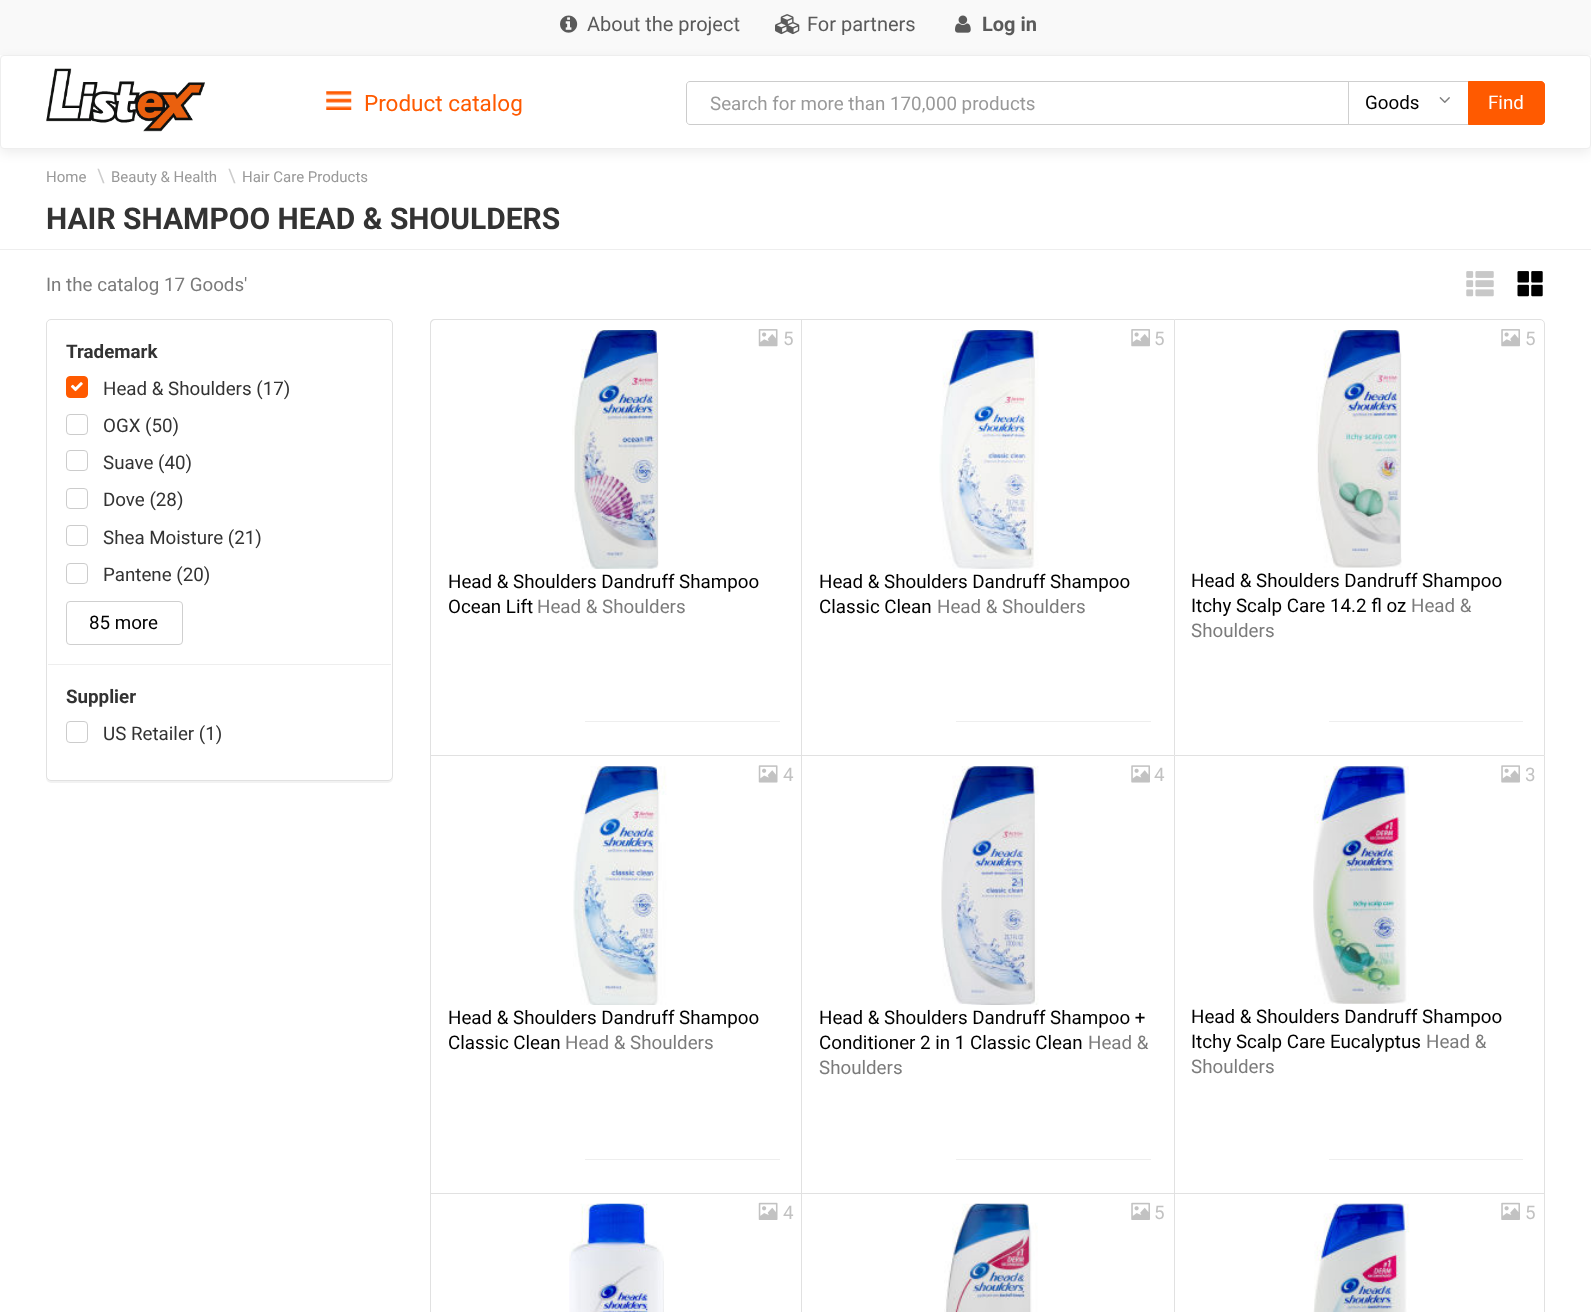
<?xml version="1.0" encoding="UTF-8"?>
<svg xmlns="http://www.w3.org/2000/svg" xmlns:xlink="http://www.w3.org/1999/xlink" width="1591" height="1312">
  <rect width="100%" height="100%" fill="#ffffff" />
  <rect width="1591" height="55" fill="#f9f9f9" />
  <image x="560" y="15" width="18" height="18" xlink:href="image1.png" />
  <image x="775" y="14" width="25" height="21" xlink:href="image2.png" />
  <image x="955" y="15" width="16" height="18" xlink:href="image3.png" />
  <rect y="59" width="1591" height="94" rx="4" fill="#000000" fill-opacity="0.07" filter="blur(6px)" />
  <rect x="0.5" y="55.5" width="1590" height="93" rx="3.5" fill="#ffffff" stroke="#eeeeee" />
  <image x="46" y="68" width="159" height="64" xlink:href="image4.png" />
  <image x="326" y="91" width="26" height="19" xlink:href="image5.png" />
  <path d="M 690 81.5 h 667.5 v 43 h -667.5 c -2 0 -3.5 -1.5 -3.5 -3.5 v -36 c 0 -2 1.5 -3.5 3.5 -3.5 z" fill="none" stroke="#cccccc" />
  <rect x="1357" y="82" width="1" height="42" fill="#ffffff" />
  <rect x="1348.5" y="81.5" width="124" height="43" fill="none" stroke="#cfcfcf" />
  <image x="1439" y="97" width="11" height="6" xlink:href="image6.png" />
  <path d="M 1468.5 81.5 h 72.5 c 2 0 3.5 1.5 3.5 3.5 v 36 c 0 2 -1.5 3.5 -3.5 3.5 h -72.5 z" fill="#ff5a00" stroke="#ff5a00" />
  <rect y="249" width="1591" height="1" fill="#eeeeee" />
  <image x="1466" y="271" width="28" height="26" xlink:href="image7.png" />
  <image x="1517" y="271" width="26" height="26" xlink:href="image8.png" />
  <rect x="46" y="320" width="347" height="463" rx="5" fill="#000000" fill-opacity="0.05" filter="blur(0.5px)" />
  <rect x="46.5" y="319.5" width="346" height="461" rx="4.5" fill="#ffffff" stroke="#e1e1e1" />
  <rect x="66.5" y="376.5" width="21" height="21" rx="3.5" fill="#ff5a00" stroke="#ff5a00" />
  <image x="71" y="382" width="12" height="10" xlink:href="image9.png" />
  <rect x="66.5" y="414.5" width="21" height="20" rx="3.5" fill="none" stroke="#cccccc" />
  <rect x="66.5" y="450.5" width="21" height="20" rx="3.5" fill="none" stroke="#cccccc" />
  <rect x="66.5" y="488.5" width="21" height="20" rx="3.5" fill="none" stroke="#cccccc" />
  <rect x="66.5" y="525.5" width="21" height="20" rx="3.5" fill="none" stroke="#cccccc" />
  <rect x="66.5" y="563.5" width="21" height="20" rx="3.5" fill="none" stroke="#cccccc" />
  <rect x="66.5" y="601.5" width="116" height="43" rx="3.5" fill="none" stroke="#cfcfcf" />
  <rect x="48" y="664" width="343" height="1" fill="#eeeeee" />
  <rect x="66.5" y="721.5" width="21" height="21" rx="3.5" fill="none" stroke="#cccccc" />
  <path d="M 435 319 h 366 v 437 h -371 v -432 c 0 -3 2 -5 5 -5 z m 0 1 h 366 v 435 h -370 v -431 c 0 -2 2 -4 4 -4 z" fill="#e1e1e1" fill-rule="evenodd" />
  <image x="572" y="330" width="87" height="239" xlink:href="image10.png" />
  <image x="758" y="329" width="20" height="18" xlink:href="image11.png" />
  <rect x="585" y="721" width="195" height="1" fill="#eeeeee" />
  <rect x="801" y="319" width="373" height="1" fill="#e1e1e1" />
  <rect x="801" y="755" width="373" height="1" fill="#e1e1e1" />
  <rect x="801" y="319" width="1" height="437" fill="#e1e1e1" />
  <image x="939" y="330" width="100" height="239" xlink:href="image12.png" />
  <image x="1131" y="329" width="19" height="18" xlink:href="image13.png" />
  <rect x="956" y="721" width="195" height="1" fill="#eeeeee" />
  <path d="M 1174.5 319.5 h 365.5 c 2.5 0 4.5 2 4.5 4.5 v 431.5 h -370 z" fill="none" stroke="#e1e1e1" />
  <image x="1316" y="330" width="86" height="238" xlink:href="image14.png" />
  <image x="1501" y="329" width="19" height="18" xlink:href="image13.png" />
  <rect x="1329" y="721" width="194" height="1" fill="#eeeeee" />
  <rect x="430" y="1193" width="744" height="1" fill="#e1e1e1" />
  <rect x="430" y="756" width="1" height="556" fill="#e1e1e1" />
  <image x="573" y="766" width="94" height="239" xlink:href="image15.png" />
  <image x="758" y="765" width="20" height="18" xlink:href="image16.png" />
  <rect x="585" y="1159" width="195" height="1" fill="#eeeeee" />
  <rect x="801" y="756" width="1" height="556" fill="#e1e1e1" />
  <image x="941" y="766" width="98" height="239" xlink:href="image17.png" />
  <image x="1131" y="765" width="19" height="18" xlink:href="image18.png" />
  <rect x="956" y="1159" width="195" height="1" fill="#eeeeee" />
  <rect x="1544" y="756" width="1" height="556" fill="#e1e1e1" />
  <rect x="1174" y="1193" width="371" height="1" fill="#e1e1e1" />
  <rect x="1174" y="756" width="1" height="556" fill="#e1e1e1" />
  <image x="1313" y="766" width="96" height="238" xlink:href="image19.png" />
  <image x="1501" y="765" width="19" height="18" xlink:href="image18.png" />
  <rect x="1329" y="1159" width="194" height="1" fill="#eeeeee" />
  <image x="569" y="1203" width="95" height="109" xlink:href="image20.png" />
  <image x="758" y="1202" width="20" height="18" xlink:href="image21.png" />
  <image x="944" y="1203" width="94" height="109" xlink:href="image22.png" />
  <image x="1131" y="1202" width="19" height="18" xlink:href="image23.png" />
  <image x="1313" y="1203" width="97" height="109" xlink:href="image24.png" />
  <image x="1501" y="1202" width="19" height="18" xlink:href="image23.png" />
  <text x="587" y="31" style="font-family: Roboto; font-size: 20px; fill: #5a5a5a">About the project</text>
  <text x="807" y="31" style="font-family: Roboto; font-size: 20px; fill: #5a5a5a">For partners</text>
  <text x="982" y="31" style="font-family: Roboto; font-size: 20px; font-weight: bold; fill: #5a5a5a">Log in</text>
  <text x="364" y="111" style="font-family: Roboto; font-size: 22.5px; fill: #ff5a00">Product catalog</text>
  <text x="710" y="110" style="font-family: Roboto; font-size: 18.75px; fill: #999999">Search for more than 170,000 products</text>
  <text x="1365" y="109" style="font-family: Roboto; font-size: 18.75px; fill: #000000">Goods</text>
  <text x="1488" y="109" style="font-family: Roboto; font-size: 18.75px; fill: #ffffff">Find</text>
  <text x="46" y="182" style="font-family: Roboto; font-size: 15px; fill: #999999">Home</text>
  <text x="97" y="182" style="font-family: Roboto; font-size: 18.75px; fill: #cccccc">\</text>
  <text x="111" y="182" style="font-family: Roboto; font-size: 15px; fill: #999999">Beauty &amp; Health</text>
  <text x="228" y="182" style="font-family: Roboto; font-size: 18.75px; fill: #cccccc">\</text>
  <text x="242" y="182" style="font-family: Roboto; font-size: 15px; fill: #999999">Hair Care Products</text>
  <text x="46" y="229" style="font-family: Roboto; font-size: 30px; font-weight: bold; fill: #333333">HAIR SHAMPOO HEAD &amp; SHOULDERS</text>
  <text x="46" y="291" style="font-family: Roboto; font-size: 18.75px; fill: #7b7b7b">In the catalog 17 Goods'</text>
  <text x="66" y="358" style="font-family: Roboto; font-size: 18.75px; font-weight: bold; fill: #333333">Trademark</text>
  <text x="103" y="395" style="font-family: Roboto; font-size: 18.75px; fill: #333333">Head &amp; Shoulders (17)</text>
  <text x="103" y="432" style="font-family: Roboto; font-size: 18.75px; fill: #333333">OGX (50)</text>
  <text x="103" y="469" style="font-family: Roboto; font-size: 18.75px; fill: #333333">Suave (40)</text>
  <text x="103" y="506" style="font-family: Roboto; font-size: 18.75px; fill: #333333">Dove (28)</text>
  <text x="103" y="544" style="font-family: Roboto; font-size: 18.75px; fill: #333333">Shea Moisture (21)</text>
  <text x="103" y="581" style="font-family: Roboto; font-size: 18.75px; fill: #333333">Pantene (20)</text>
  <text x="89" y="629" style="font-family: Roboto; font-size: 18.75px; fill: #000000">85 more</text>
  <text x="66" y="703" style="font-family: Roboto; font-size: 18.75px; font-weight: bold; fill: #333333">Supplier</text>
  <text x="103" y="740" style="font-family: Roboto; font-size: 18.75px; fill: #333333">US Retailer (1)</text>
  <text x="783" y="345" style="font-family: Roboto; font-size: 18.75px; fill: #c2c2c2">5</text>
  <text x="448" y="588" style="font-family: Roboto; font-size: 18.75px; fill: #000000">Head &amp; Shoulders Dandruff Shampoo</text>
  <text x="448" y="613" style="font-family: Roboto; font-size: 18.75px; fill: #000000">Ocean Lift</text>
  <text x="537" y="613" style="font-family: Roboto; font-size: 18.75px; fill: #7b7b7b">Head &amp; Shoulders</text>
  <text x="1154" y="345" style="font-family: Roboto; font-size: 18.75px; fill: #c2c2c2">5</text>
  <text x="819" y="588" style="font-family: Roboto; font-size: 18.75px; fill: #000000">Head &amp; Shoulders Dandruff Shampoo</text>
  <text x="819" y="613" style="font-family: Roboto; font-size: 18.75px; fill: #000000">Classic Clean</text>
  <text x="937" y="613" style="font-family: Roboto; font-size: 18.75px; fill: #7b7b7b">Head &amp; Shoulders</text>
  <text x="1525" y="345" style="font-family: Roboto; font-size: 18.75px; fill: #c2c2c2">5</text>
  <text x="1191" y="587" style="font-family: Roboto; font-size: 18.75px; fill: #000000">Head &amp; Shoulders Dandruff Shampoo</text>
  <text x="1191" y="612" style="font-family: Roboto; font-size: 18.75px; fill: #000000">Itchy Scalp Care 14.2 fl oz</text>
  <text x="1411" y="612" style="font-family: Roboto; font-size: 18.75px; fill: #7b7b7b">Head &amp;</text>
  <text x="1191" y="637" style="font-family: Roboto; font-size: 18.75px; fill: #7b7b7b">Shoulders</text>
  <text x="783" y="781" style="font-family: Roboto; font-size: 18.75px; fill: #c2c2c2">4</text>
  <text x="448" y="1024" style="font-family: Roboto; font-size: 18.75px; fill: #000000">Head &amp; Shoulders Dandruff Shampoo</text>
  <text x="448" y="1049" style="font-family: Roboto; font-size: 18.75px; fill: #000000">Classic Clean</text>
  <text x="565" y="1049" style="font-family: Roboto; font-size: 18.75px; fill: #7b7b7b">Head &amp; Shoulders</text>
  <text x="1154" y="781" style="font-family: Roboto; font-size: 18.75px; fill: #c2c2c2">4</text>
  <text x="819" y="1024" style="font-family: Roboto; font-size: 18.75px; fill: #000000">Head &amp; Shoulders Dandruff Shampoo +</text>
  <text x="819" y="1049" style="font-family: Roboto; font-size: 18.75px; fill: #000000">Conditioner 2 in 1 Classic Clean</text>
  <text x="1088" y="1049" style="font-family: Roboto; font-size: 18.75px; fill: #7b7b7b">Head &amp;</text>
  <text x="819" y="1074" style="font-family: Roboto; font-size: 18.75px; fill: #7b7b7b">Shoulders</text>
  <text x="1525" y="781" style="font-family: Roboto; font-size: 18.75px; fill: #c2c2c2">3</text>
  <text x="1191" y="1023" style="font-family: Roboto; font-size: 18.75px; fill: #000000">Head &amp; Shoulders Dandruff Shampoo</text>
  <text x="1191" y="1048" style="font-family: Roboto; font-size: 18.75px; fill: #000000">Itchy Scalp Care Eucalyptus</text>
  <text x="1426" y="1048" style="font-family: Roboto; font-size: 18.75px; fill: #7b7b7b">Head &amp;</text>
  <text x="1191" y="1073" style="font-family: Roboto; font-size: 18.75px; fill: #7b7b7b">Shoulders</text>
  <text x="783" y="1219" style="font-family: Roboto; font-size: 18.75px; fill: #c2c2c2">4</text>
  <text x="1154" y="1219" style="font-family: Roboto; font-size: 18.75px; fill: #c2c2c2">5</text>
  <text x="1525" y="1219" style="font-family: Roboto; font-size: 18.75px; fill: #c2c2c2">5</text>
</svg>
